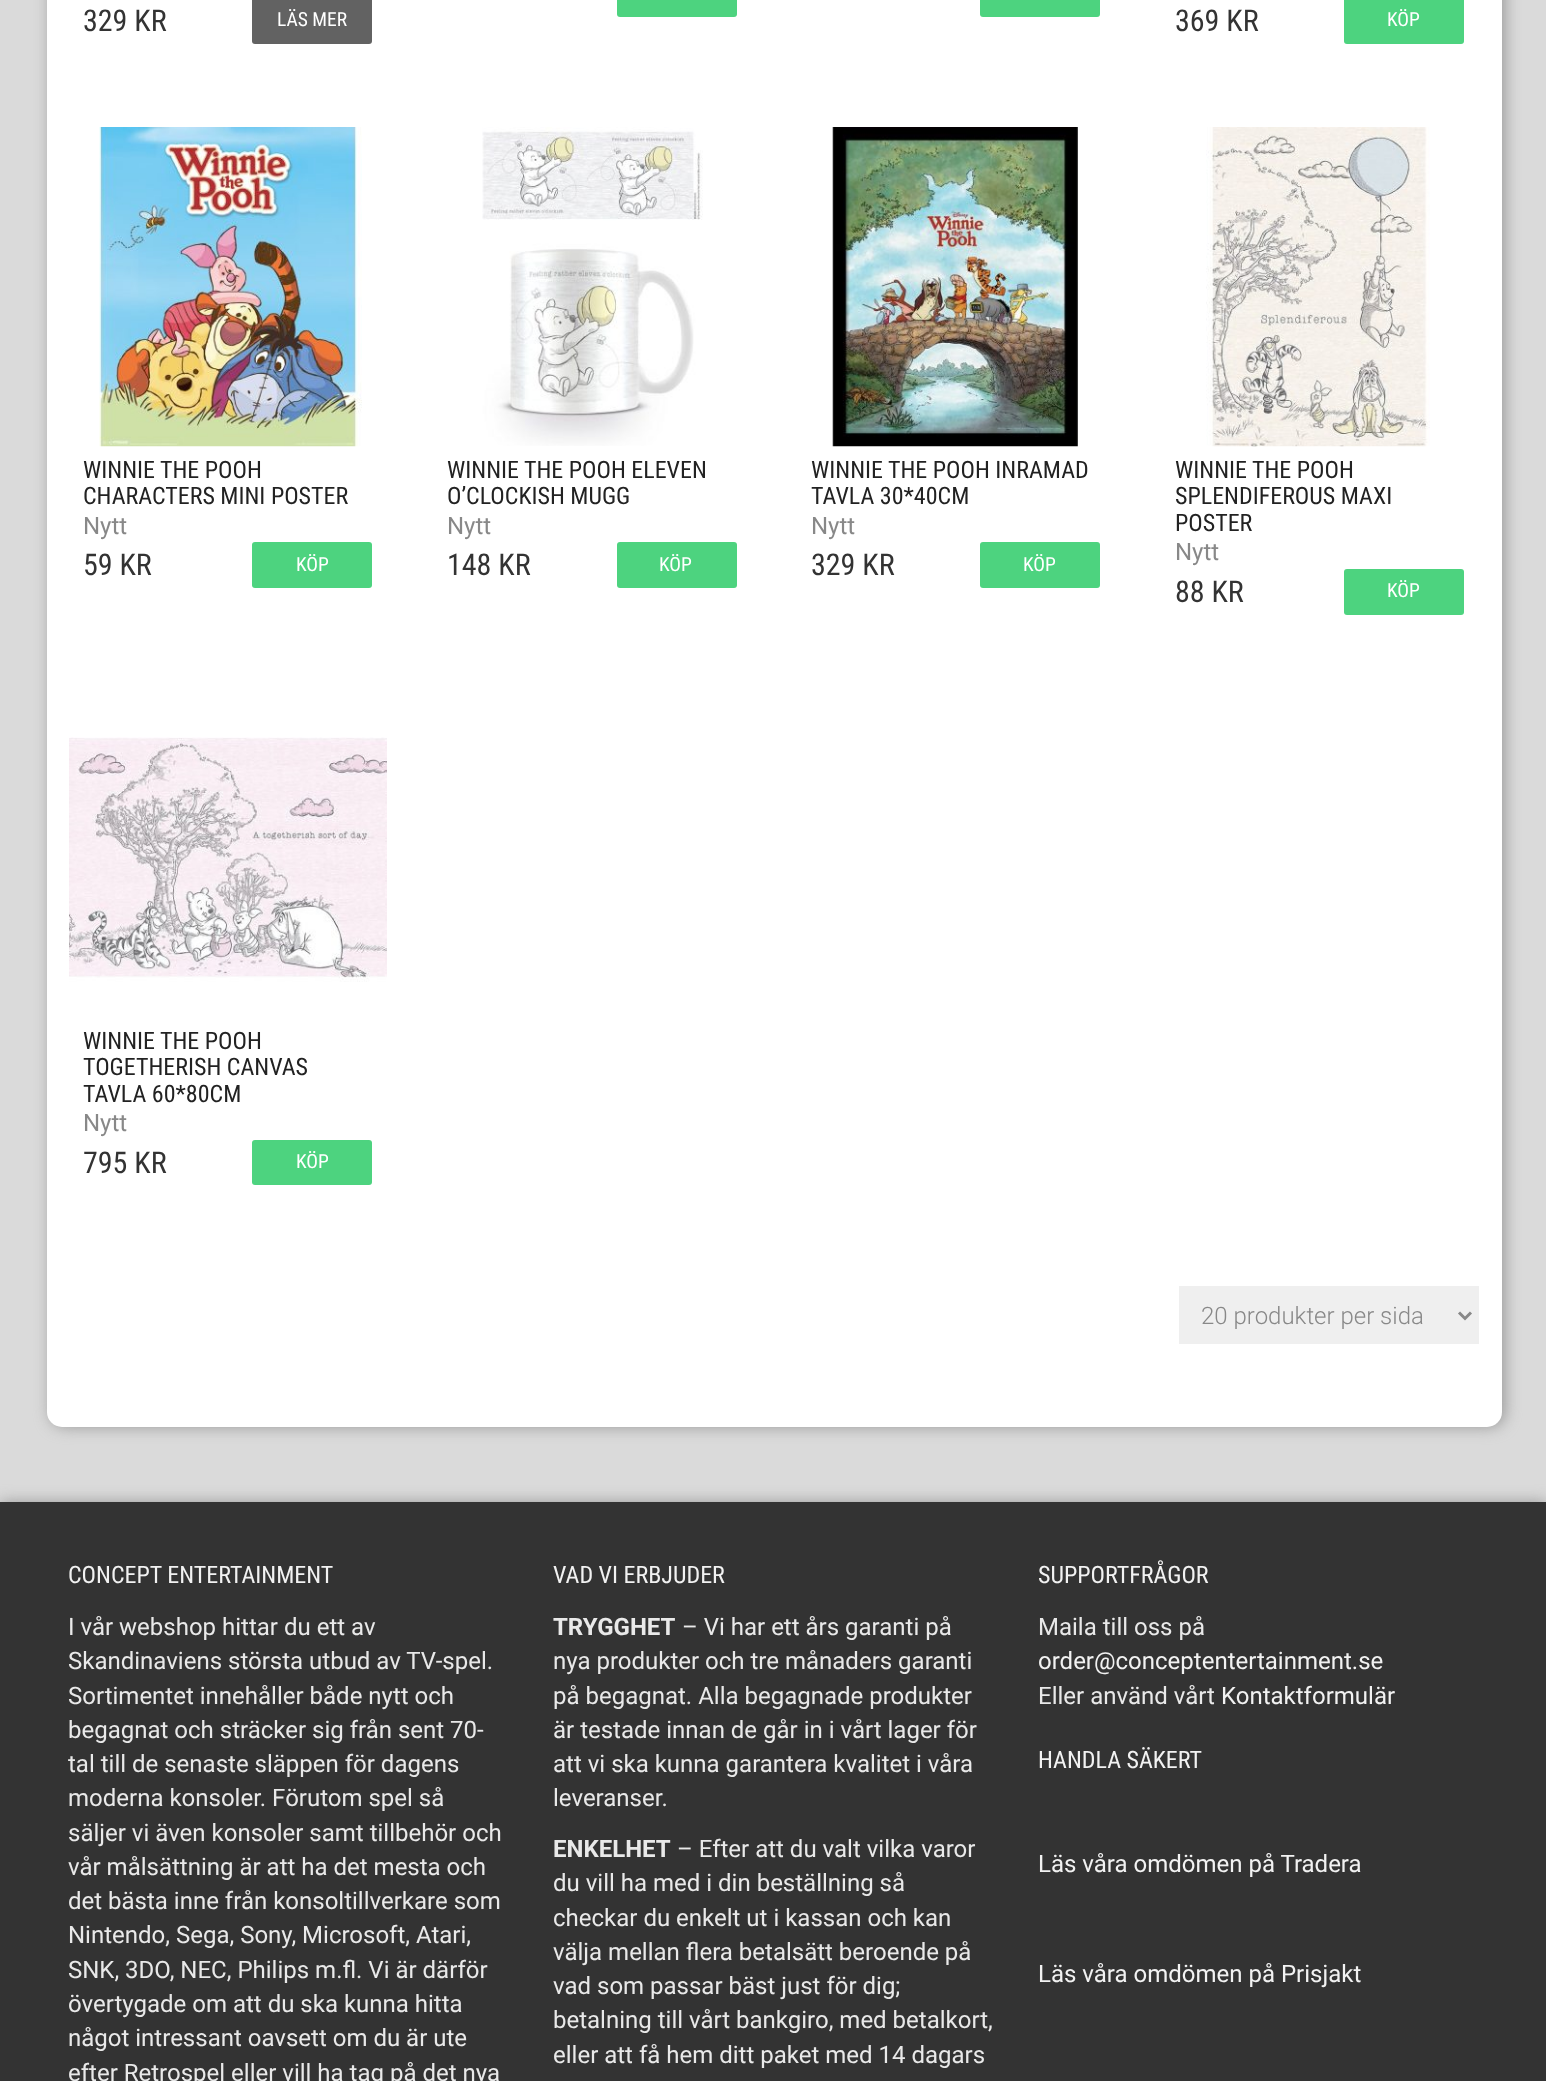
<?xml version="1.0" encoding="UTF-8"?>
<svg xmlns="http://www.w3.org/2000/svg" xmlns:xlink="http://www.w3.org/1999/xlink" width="1546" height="2081">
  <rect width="100%" height="100%" fill="#dadada" />
  <rect x="50" y="-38" width="1455" height="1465" rx="15" fill="#999999" filter="blur(7.5px)" />
  <rect x="47" y="-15" width="1455" height="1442" rx="15" fill="#ffffff" />
  <rect x="252" y="-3" width="120" height="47" rx="3" fill="#626262" />
  <rect x="617" y="-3" width="120" height="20" rx="3" fill="#4dd37f" />
  <rect x="980" y="-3" width="120" height="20" rx="3" fill="#4dd37f" />
  <rect x="1344" y="-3" width="120" height="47" rx="3" fill="#4dd37f" />
  <image x="99" y="127" width="263" height="320" xlink:href="image1.png" />
  <rect x="252" y="542" width="120" height="46" rx="3" fill="#4dd37f" />
  <image x="482" y="127" width="221" height="319" xlink:href="image2.png" />
  <rect x="617" y="542" width="120" height="46" rx="3" fill="#4dd37f" />
  <image x="832" y="127" width="246" height="320" xlink:href="image3.png" />
  <rect x="980" y="542" width="120" height="46" rx="3" fill="#4dd37f" />
  <image x="1206" y="127" width="224" height="320" xlink:href="image4.png" />
  <rect x="1344" y="569" width="120" height="46" rx="3" fill="#4dd37f" />
  <image x="69" y="737" width="318" height="245" xlink:href="image5.png" />
  <rect x="252" y="1140" width="120" height="45" rx="3" fill="#4dd37f" />
  <rect x="1179" y="1286" width="300" height="58" fill="#efefef" />
  <path d="M 1459 1312.5 l 6 6 l 6 -6" fill="none" stroke="#888888" stroke-width="3" />
  <rect y="1502" width="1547" height="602" fill="#999999" filter="blur(7.5px)" />
  <rect y="1502" width="1546" height="579" fill="#333333" />
  <text x="83" y="31" style="font-family: Roboto Condensed; font-size: 30px; fill: #333333">329 KR</text>
  <text x="277" y="26" style="font-family: Roboto Condensed; font-size: 19.5px; fill: #ffffff">LÄS MER</text>
  <text x="1175" y="31" style="font-family: Roboto Condensed; font-size: 30px; fill: #333333">369 KR</text>
  <text x="1387" y="26" style="font-family: Roboto Condensed; font-size: 19.5px; fill: #ffffff">KÖP</text>
  <text x="83" y="478" style="font-family: Roboto Condensed; font-size: 24px; fill: #222222">WINNIE THE POOH</text>
  <text x="83" y="504" style="font-family: Roboto Condensed; font-size: 24px; fill: #222222">CHARACTERS MINI POSTER</text>
  <text x="83" y="534" style="font-family: Roboto; font-size: 24px; fill: #888888">Nytt</text>
  <text x="83" y="575" style="font-family: Roboto Condensed; font-size: 30px; fill: #333333">59 KR</text>
  <text x="296" y="571" style="font-family: Roboto Condensed; font-size: 19.5px; fill: #ffffff">KÖP</text>
  <text x="447" y="478" style="font-family: Roboto Condensed; font-size: 24px; fill: #222222">WINNIE THE POOH ELEVEN</text>
  <text x="447" y="504" style="font-family: Roboto Condensed; font-size: 24px; fill: #222222">O’CLOCKISH MUGG</text>
  <text x="447" y="534" style="font-family: Roboto; font-size: 24px; fill: #888888">Nytt</text>
  <text x="447" y="575" style="font-family: Roboto Condensed; font-size: 30px; fill: #333333">148 KR</text>
  <text x="659" y="571" style="font-family: Roboto Condensed; font-size: 19.5px; fill: #ffffff">KÖP</text>
  <text x="811" y="478" style="font-family: Roboto Condensed; font-size: 24px; fill: #222222">WINNIE THE POOH INRAMAD</text>
  <text x="811" y="504" style="font-family: Roboto Condensed; font-size: 24px; fill: #222222">TAVLA 30*40CM</text>
  <text x="811" y="534" style="font-family: Roboto; font-size: 24px; fill: #888888">Nytt</text>
  <text x="811" y="575" style="font-family: Roboto Condensed; font-size: 30px; fill: #333333">329 KR</text>
  <text x="1023" y="571" style="font-family: Roboto Condensed; font-size: 19.5px; fill: #ffffff">KÖP</text>
  <text x="1175" y="478" style="font-family: Roboto Condensed; font-size: 24px; fill: #222222">WINNIE THE POOH</text>
  <text x="1175" y="504" style="font-family: Roboto Condensed; font-size: 24px; fill: #222222">SPLENDIFEROUS MAXI</text>
  <text x="1175" y="531" style="font-family: Roboto Condensed; font-size: 24px; fill: #222222">POSTER</text>
  <text x="1175" y="560" style="font-family: Roboto; font-size: 24px; fill: #888888">Nytt</text>
  <text x="1175" y="602" style="font-family: Roboto Condensed; font-size: 30px; fill: #333333">88 KR</text>
  <text x="1387" y="597" style="font-family: Roboto Condensed; font-size: 19.5px; fill: #ffffff">KÖP</text>
  <text x="83" y="1049" style="font-family: Roboto Condensed; font-size: 24px; fill: #222222">WINNIE THE POOH</text>
  <text x="83" y="1075" style="font-family: Roboto Condensed; font-size: 24px; fill: #222222">TOGETHERISH CANVAS</text>
  <text x="83" y="1102" style="font-family: Roboto Condensed; font-size: 24px; fill: #222222">TAVLA 60*80CM</text>
  <text x="83" y="1131" style="font-family: Roboto; font-size: 24px; fill: #888888">Nytt</text>
  <text x="83" y="1173" style="font-family: Roboto Condensed; font-size: 30px; fill: #333333">795 KR</text>
  <text x="296" y="1168" style="font-family: Roboto Condensed; font-size: 19.5px; fill: #ffffff">KÖP</text>
  <text x="1201" y="1324" style="font-family: Roboto; font-size: 24px; font-weight: 300; fill: #888888">20 produkter per sida</text>
  <text x="68" y="1583" style="font-family: Roboto Condensed; font-size: 24px; fill: #f2f2f2">CONCEPT ENTERTAINMENT</text>
  <text x="68" y="1635" style="font-family: Roboto; font-size: 24px; fill: #e9e9e9">I vår webshop hittar du ett av</text>
  <text x="68" y="1669" style="font-family: Roboto; font-size: 24px; fill: #e9e9e9">Skandinaviens största utbud av TV-spel.</text>
  <text x="68" y="1704" style="font-family: Roboto; font-size: 24px; fill: #e9e9e9">Sortimentet innehåller både nytt och</text>
  <text x="68" y="1738" style="font-family: Roboto; font-size: 24px; fill: #e9e9e9">begagnat och sträcker sig från sent 70-</text>
  <text x="68" y="1772" style="font-family: Roboto; font-size: 24px; fill: #e9e9e9">tal till de senaste släppen för dagens</text>
  <text x="68" y="1806" style="font-family: Roboto; font-size: 24px; fill: #e9e9e9">moderna konsoler. Förutom spel så</text>
  <text x="68" y="1841" style="font-family: Roboto; font-size: 24px; fill: #e9e9e9">säljer vi även konsoler samt tillbehör och</text>
  <text x="68" y="1875" style="font-family: Roboto; font-size: 24px; fill: #e9e9e9">vår målsättning är att ha det mesta och</text>
  <text x="68" y="1909" style="font-family: Roboto; font-size: 24px; fill: #e9e9e9">det bästa inne från konsoltillverkare som</text>
  <text x="68" y="1943" style="font-family: Roboto; font-size: 24px; fill: #e9e9e9">Nintendo, Sega, Sony, Microsoft, Atari,</text>
  <text x="68" y="1978" style="font-family: Roboto; font-size: 24px; fill: #e9e9e9">SNK, 3DO, NEC, Philips m.fl. Vi är därför</text>
  <text x="68" y="2012" style="font-family: Roboto; font-size: 24px; fill: #e9e9e9">övertygade om att du ska kunna hitta</text>
  <text x="68" y="2046" style="font-family: Roboto; font-size: 24px; fill: #e9e9e9">något intressant oavsett om du är ute</text>
  <text x="68" y="2081" style="font-family: Roboto; font-size: 24px; fill: #e9e9e9">efter Retrospel eller vill ha tag på det nya</text>
  <text x="553" y="1583" style="font-family: Roboto Condensed; font-size: 24px; fill: #f2f2f2">VAD VI ERBJUDER</text>
  <text x="553" y="1635" style="font-family: Roboto; font-size: 24px; font-weight: bold; fill: #e9e9e9">TRYGGHET</text>
  <text x="682" y="1635" style="font-family: Roboto; font-size: 24px; fill: #e9e9e9">– Vi har ett års garanti på</text>
  <text x="553" y="1669" style="font-family: Roboto; font-size: 24px; fill: #e9e9e9">nya produkter och tre månaders garanti</text>
  <text x="553" y="1704" style="font-family: Roboto; font-size: 24px; fill: #e9e9e9">på begagnat. Alla begagnade produkter</text>
  <text x="553" y="1738" style="font-family: Roboto; font-size: 24px; fill: #e9e9e9">är testade innan de går in i vårt lager för</text>
  <text x="553" y="1772" style="font-family: Roboto; font-size: 24px; fill: #e9e9e9">att vi ska kunna garantera kvalitet i våra</text>
  <text x="553" y="1806" style="font-family: Roboto; font-size: 24px; fill: #e9e9e9">leveranser.</text>
  <text x="553" y="1857" style="font-family: Roboto; font-size: 24px; font-weight: bold; fill: #e9e9e9">ENKELHET</text>
  <text x="677" y="1857" style="font-family: Roboto; font-size: 24px; fill: #e9e9e9">– Efter att du valt vilka varor</text>
  <text x="553" y="1891" style="font-family: Roboto; font-size: 24px; fill: #e9e9e9">du vill ha med i din beställning så</text>
  <text x="553" y="1926" style="font-family: Roboto; font-size: 24px; fill: #e9e9e9">checkar du enkelt ut i kassan och kan</text>
  <text x="553" y="1960" style="font-family: Roboto; font-size: 24px; fill: #e9e9e9">välja mellan flera betalsätt beroende på</text>
  <text x="553" y="1994" style="font-family: Roboto; font-size: 24px; fill: #e9e9e9">vad som passar bäst just för dig;</text>
  <text x="553" y="2028" style="font-family: Roboto; font-size: 24px; fill: #e9e9e9">betalning till vårt bankgiro, med betalkort,</text>
  <text x="553" y="2063" style="font-family: Roboto; font-size: 24px; fill: #e9e9e9">eller att få hem ditt paket med 14 dagars</text>
  <text x="1038" y="1583" style="font-family: Roboto Condensed; font-size: 24px; fill: #f2f2f2">SUPPORTFRÅGOR</text>
  <text x="1038" y="1635" style="font-family: Roboto; font-size: 24px; fill: #e9e9e9">Maila till oss på</text>
  <text x="1038" y="1669" style="font-family: Roboto; font-size: 24px; fill: #f2f2f2">order@conceptentertainment.se</text>
  <text x="1038" y="1704" style="font-family: Roboto; font-size: 24px; fill: #e9e9e9">Eller använd vårt</text>
  <text x="1221" y="1704" style="font-family: Roboto; font-size: 24px; fill: #f2f2f2">Kontaktformulär</text>
  <text x="1038" y="1768" style="font-family: Roboto Condensed; font-size: 24px; fill: #f2f2f2">HANDLA SÄKERT</text>
  <text x="1038" y="1872" style="font-family: Roboto; font-size: 24px; fill: #f2f2f2">Läs våra omdömen på Tradera</text>
  <text x="1038" y="1982" style="font-family: Roboto; font-size: 24px; fill: #f2f2f2">Läs våra omdömen på Prisjakt</text>
</svg>
